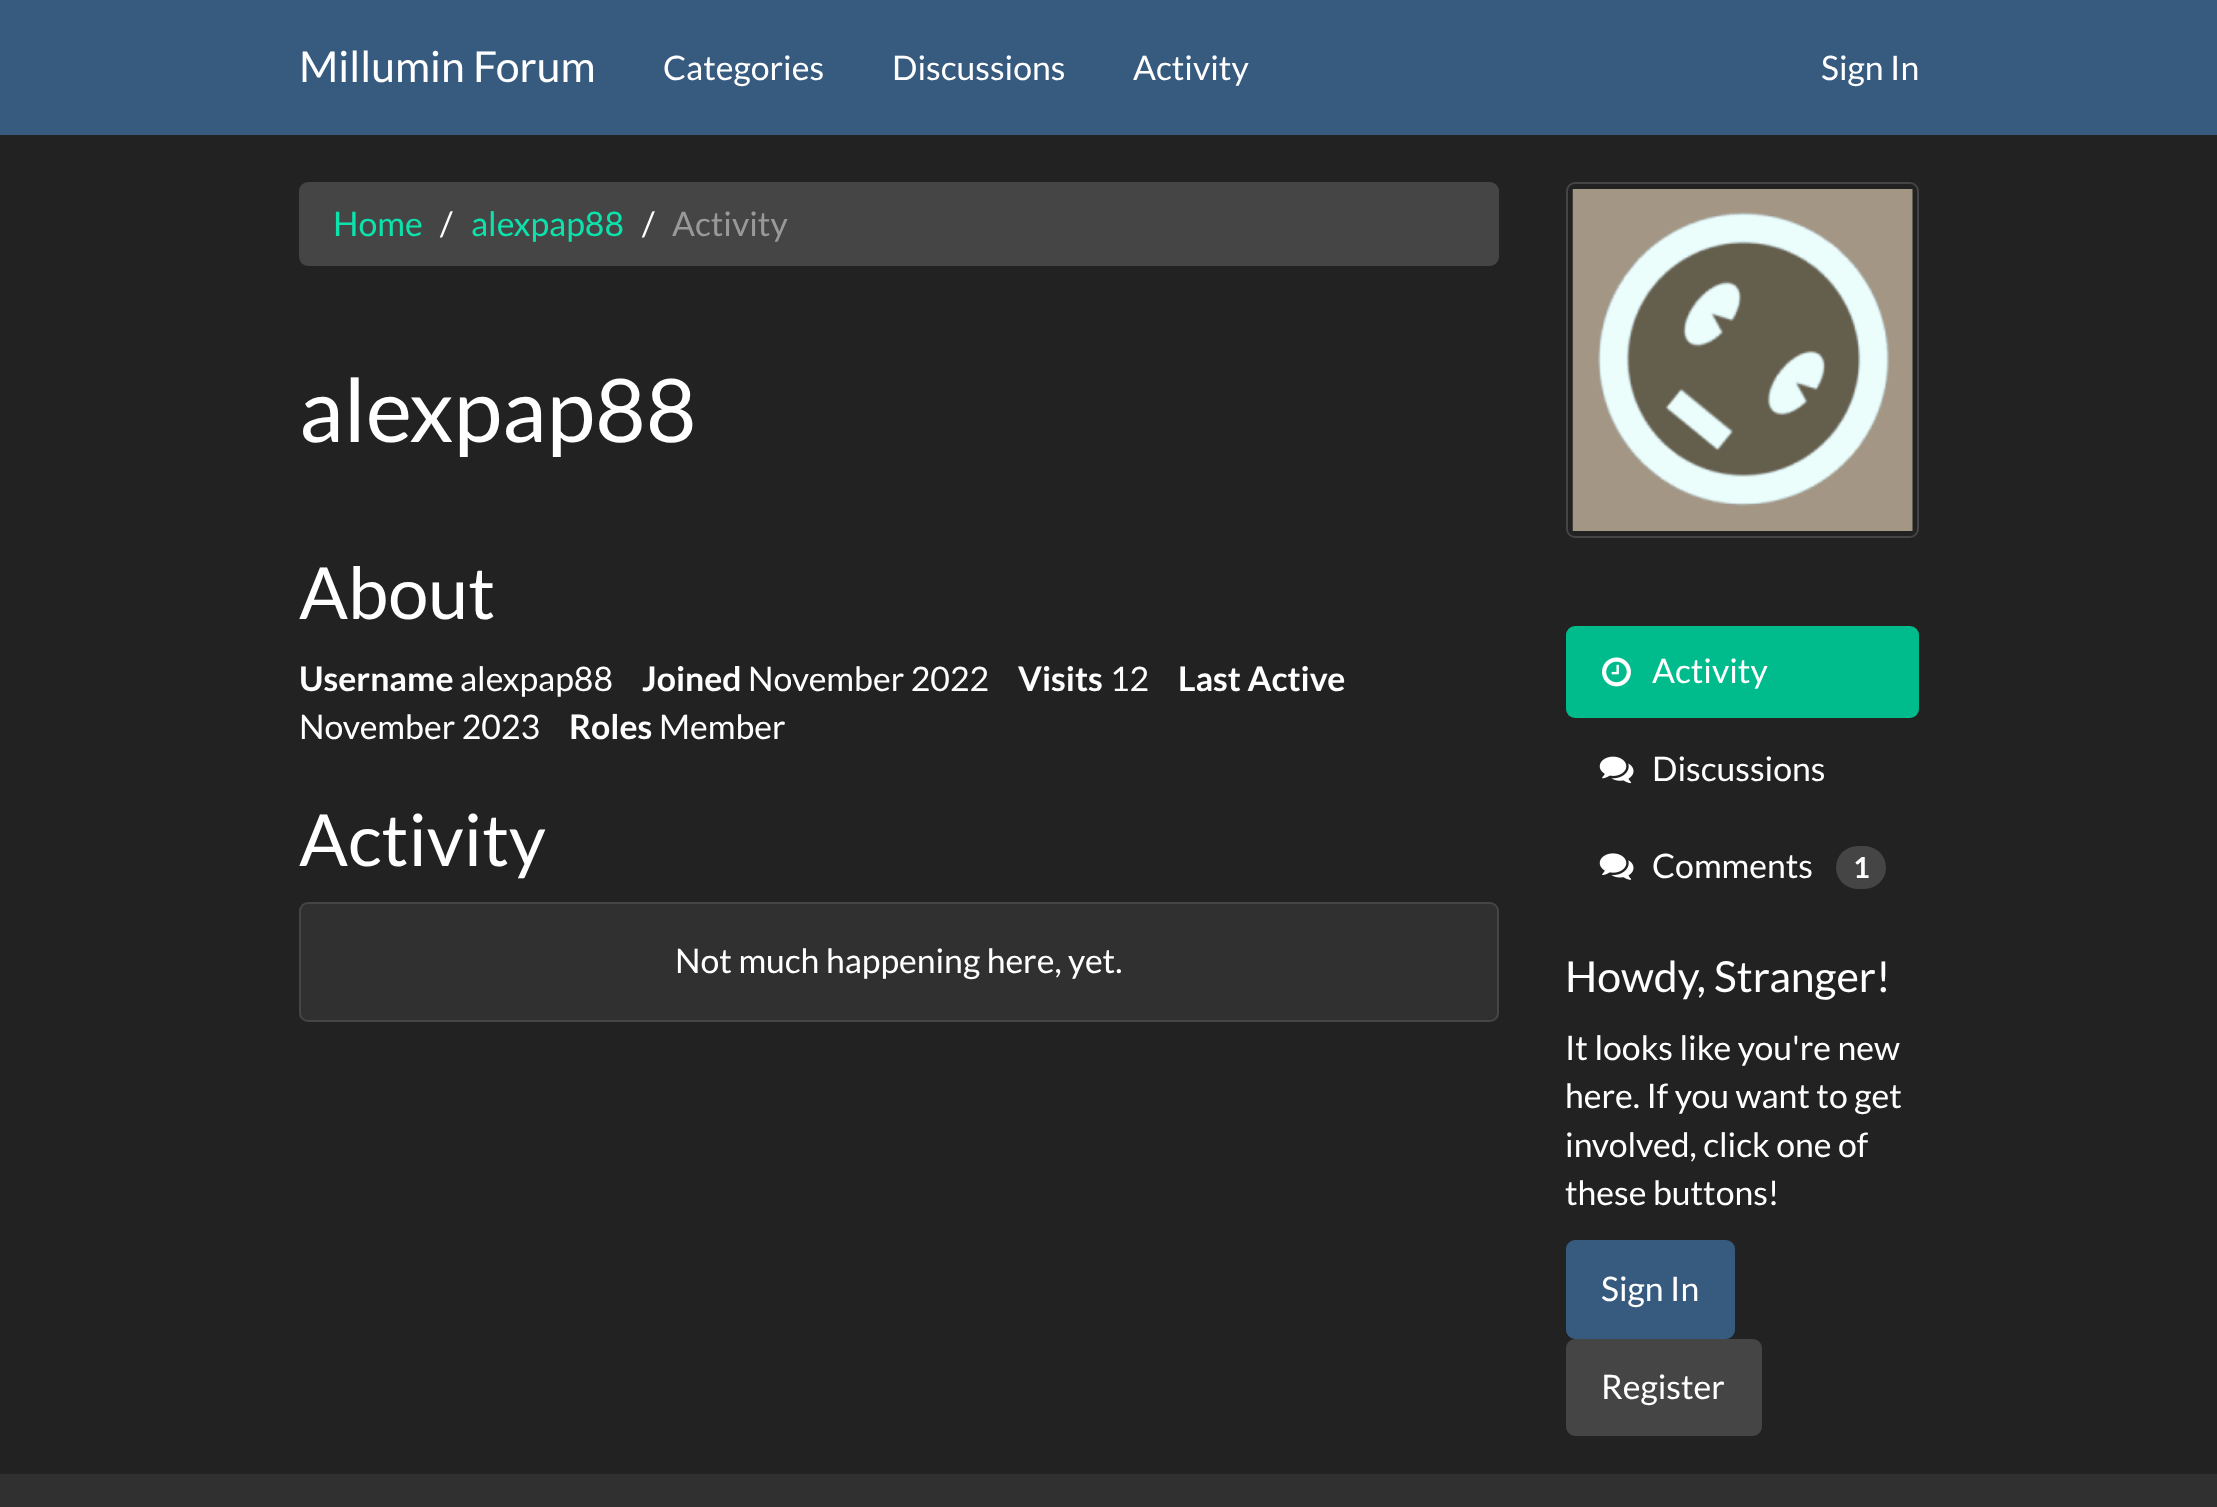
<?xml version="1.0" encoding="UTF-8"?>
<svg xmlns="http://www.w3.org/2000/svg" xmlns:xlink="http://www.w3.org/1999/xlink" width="2217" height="1507">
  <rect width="100%" height="100%" fill="#222222" />
  <rect width="2217" height="135" fill="#375a7f" />
  <rect x="299" y="182" width="1200" height="84" rx="9" fill="#464545" />
  <rect x="300" y="903" width="1198" height="118" rx="8" fill="#303030" stroke="#464545" stroke-width="2" />
  <rect x="1567" y="183" width="351" height="354" rx="8" fill="none" stroke="#464545" stroke-width="2" />
  <image x="1572" y="189" width="341" height="342" xlink:href="image1.png" />
  <rect x="1566" y="626" width="353" height="92" rx="9" fill="#00bc8c" />
  <image x="1602" y="657" width="29" height="30" xlink:href="image2.png" />
  <image x="1599" y="756" width="35" height="28" xlink:href="image3.png" />
  <image x="1599" y="853" width="35" height="27" xlink:href="image4.png" />
  <rect x="1836" y="846" width="50" height="43" rx="21.5" fill="#464545" />
  <rect x="1567" y="1241" width="167" height="97" rx="8" fill="#375a7f" stroke="#375a7f" stroke-width="2" />
  <rect x="1567" y="1340" width="194" height="95" rx="8" fill="#464545" stroke="#464545" stroke-width="2" />
  <rect y="1474" width="2217" height="33" fill="#303030" />
  <text x="299" y="82" style="font-family: Lato; font-size: 42.75px; fill: #ffffff">Millumin Forum</text>
  <text x="663" y="80" style="font-family: Lato; font-size: 33.75px; fill: #ffffff">Categories</text>
  <text x="892" y="80" style="font-family: Lato; font-size: 33.75px; fill: #ffffff">Discussions</text>
  <text x="1133" y="80" style="font-family: Lato; font-size: 33.75px; fill: #ffffff">Activity</text>
  <text x="1821" y="80" style="font-family: Lato; font-size: 33.75px; fill: #ffffff">Sign In</text>
  <text x="333" y="236" style="font-family: Lato; font-size: 33.75px; fill: #0ce3ac">Home</text>
  <text x="440" y="236" style="font-family: Lato; font-size: 33.75px; fill: #ffffff">/</text>
  <text x="471" y="236" style="font-family: Lato; font-size: 33.75px; fill: #0ce3ac">alexpap88</text>
  <text x="642" y="236" style="font-family: Lato; font-size: 33.75px; fill: #ffffff">/</text>
  <text x="672" y="236" style="font-family: Lato; font-size: 33.75px; fill: #999999">Activity</text>
  <text x="299" y="442" style="font-family: Lato; font-size: 87.75px; fill: #ffffff">alexpap88</text>
  <text x="299" y="619" style="font-family: Lato; font-size: 72px; fill: #ffffff">About</text>
  <text x="299" y="691" style="font-family: Lato; font-size: 33.75px; font-weight: bold; fill: #ffffff">Username</text>
  <text x="460" y="691" style="font-family: Lato; font-size: 33.75px; fill: #ffffff">alexpap88</text>
  <text x="642" y="691" style="font-family: Lato; font-size: 33.75px; font-weight: bold; fill: #ffffff">Joined</text>
  <text x="748" y="691" style="font-family: Lato; font-size: 33.75px; fill: #ffffff">November 2022</text>
  <text x="1018" y="691" style="font-family: Lato; font-size: 33.75px; font-weight: bold; fill: #ffffff">Visits</text>
  <text x="1110" y="691" style="font-family: Lato; font-size: 33.75px; fill: #ffffff">12</text>
  <text x="1178" y="691" style="font-family: Lato; font-size: 33.75px; font-weight: bold; fill: #ffffff">Last Active</text>
  <text x="299" y="739" style="font-family: Lato; font-size: 33.75px; fill: #ffffff">November 2023</text>
  <text x="569" y="739" style="font-family: Lato; font-size: 33.75px; font-weight: bold; fill: #ffffff">Roles</text>
  <text x="659" y="739" style="font-family: Lato; font-size: 33.75px; fill: #ffffff">Member</text>
  <text x="299" y="866" style="font-family: Lato; font-size: 72px; fill: #ffffff">Activity</text>
  <text x="675" y="973" style="font-family: Lato; font-size: 33.75px; fill: #ffffff">Not much happening here, yet.</text>
  <text x="1652" y="683" style="font-family: Lato; font-size: 33.75px; fill: #ffffff">Activity</text>
  <text x="1652" y="781" style="font-family: Lato; font-size: 33.75px; fill: #ffffff">Discussions</text>
  <text x="1652" y="878" style="font-family: Lato; font-size: 33.75px; fill: #ffffff">Comments</text>
  <text x="1853" y="878" style="font-family: Lato; font-size: 29px; font-weight: bold; fill: #ffffff">1</text>
  <text x="1565" y="992" style="font-family: Lato; font-size: 42.75px; fill: #ffffff">Howdy, Stranger!</text>
  <text x="1565" y="1060" style="font-family: Lato; font-size: 33.75px; fill: #ffffff">It looks like you're new</text>
  <text x="1565" y="1108" style="font-family: Lato; font-size: 33.75px; fill: #ffffff">here. If you want to get</text>
  <text x="1565" y="1157" style="font-family: Lato; font-size: 33.75px; fill: #ffffff">involved, click one of</text>
  <text x="1565" y="1205" style="font-family: Lato; font-size: 33.75px; fill: #ffffff">these buttons!</text>
  <text x="1601" y="1301" style="font-family: Lato; font-size: 33.75px; fill: #ffffff">Sign In</text>
  <text x="1601" y="1399" style="font-family: Lato; font-size: 33.75px; fill: #ffffff">Register</text>
</svg>
